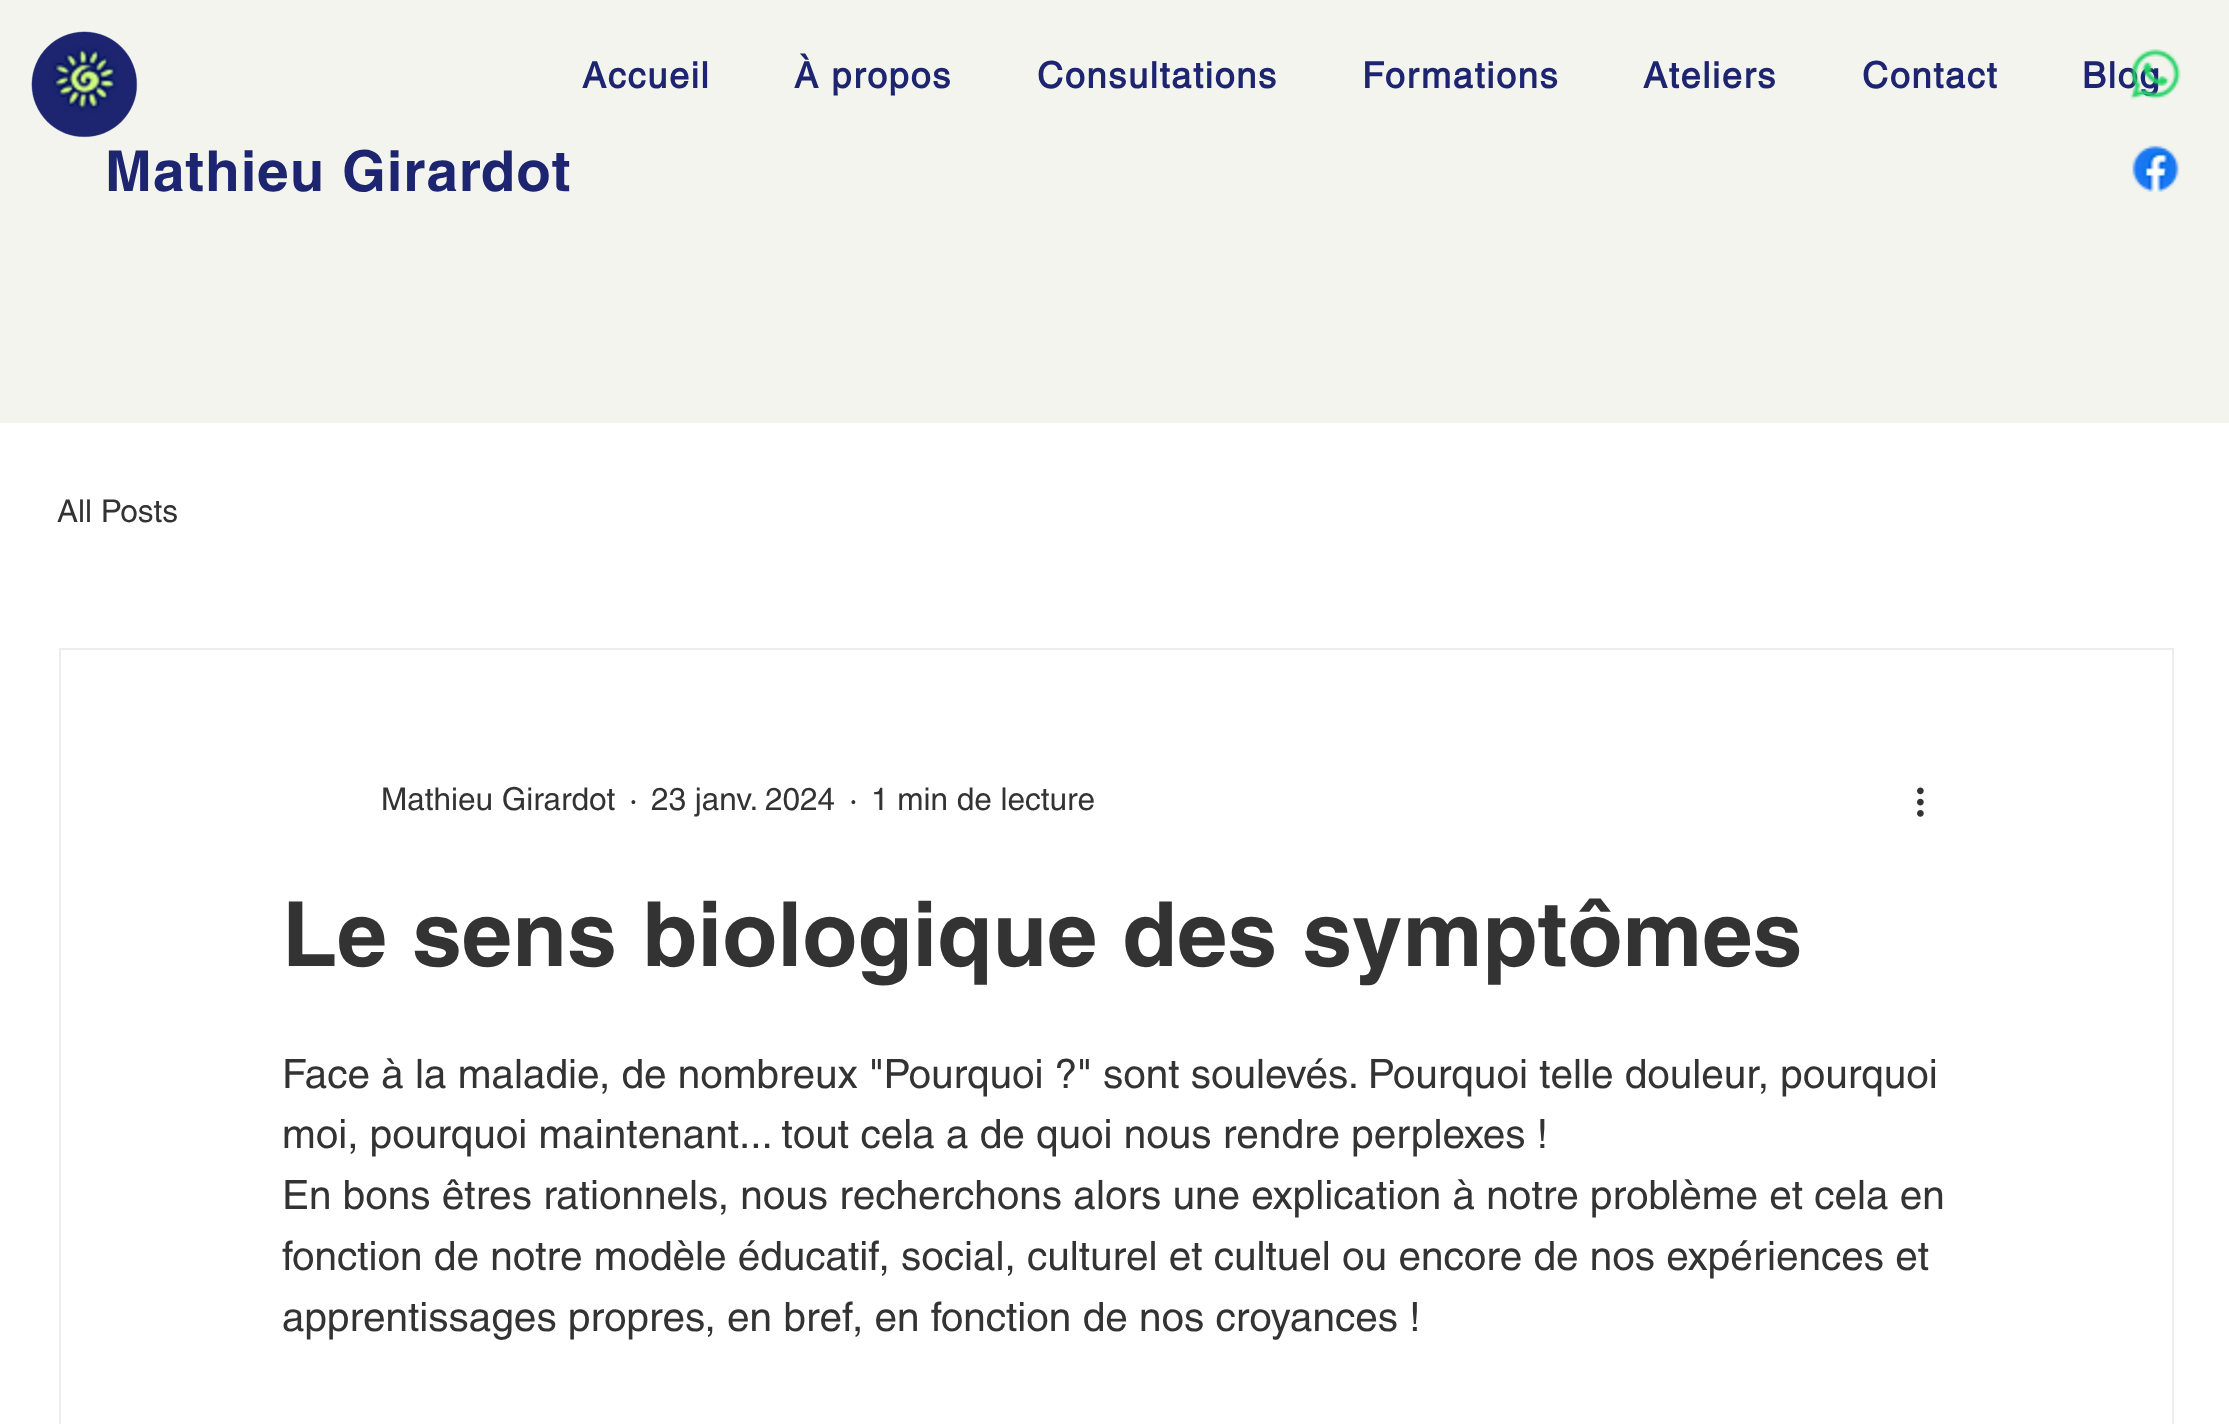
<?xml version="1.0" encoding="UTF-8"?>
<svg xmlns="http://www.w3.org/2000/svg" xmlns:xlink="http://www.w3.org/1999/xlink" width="2229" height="1424">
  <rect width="100%" height="100%" fill="#ffffff" />
  <rect width="2229" height="423" fill="#f3f4ed" />
  <image x="2132" y="145" width="48" height="47" xlink:href="image2.png" />
  <circle cx="84.5" cy="84.5" r="52.5" fill="#ffffff" />
  <image x="31" y="31" width="107" height="107" xlink:href="image3.png" />
  <rect x="60" y="649" width="2113" height="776" fill="none" stroke="#eeecec" stroke-width="2" />
  <image x="1917" y="787" width="7" height="30" xlink:href="image4.png" />
  <text x="582" y="88" style="font-family: 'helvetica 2'; font-size: 36px; font-weight: bold; letter-spacing: 1.75px; fill: #1d2470">Accueil</text>
  <text x="794" y="88" style="font-family: 'helvetica 2'; font-size: 36px; font-weight: bold; letter-spacing: 1.75px; fill: #1d2470">À propos</text>
  <text x="1037" y="88" style="font-family: 'helvetica 2'; font-size: 36px; font-weight: bold; letter-spacing: 1.75px; fill: #1d2470">Consultations</text>
  <text x="1362" y="88" style="font-family: 'helvetica 2'; font-size: 36px; font-weight: bold; letter-spacing: 1.75px; fill: #1d2470">Formations</text>
  <text x="1643" y="88" style="font-family: 'helvetica 2'; font-size: 36px; font-weight: bold; letter-spacing: 1.75px; fill: #1d2470">Ateliers</text>
  <text x="1862" y="88" style="font-family: 'helvetica 2'; font-size: 36px; font-weight: bold; letter-spacing: 1.75px; fill: #1d2470">Contact</text>
  <text x="2082" y="88" style="font-family: 'helvetica 2'; font-size: 36px; font-weight: bold; letter-spacing: 1.75px; fill: #1d2470">Blog</text>
  <image x="2130" y="49" width="51" height="51" xlink:href="image1.png" />
  <text x="105" y="191" style="font-family: helvetica; font-size: 56.25px; font-weight: bold; letter-spacing: 1.1px; fill: #1d2470">Mathieu Girardot</text>
  <text x="57" y="522" style="font-family: helvetica; font-size: 31.5px; fill: #333333">All Posts</text>
  <text x="381" y="810" style="font-family: helvetica; font-size: 31.5px; fill: #333333">Mathieu Girardot</text>
  <text x="629" y="810" style="font-family: helvetica; font-size: 31.5px; fill: #333333">·</text>
  <text x="651" y="810" style="font-family: helvetica; font-size: 31.5px; fill: #333333">23 janv. 2024</text>
  <text x="849" y="810" style="font-family: helvetica; font-size: 31.5px; fill: #333333">·</text>
  <text x="871" y="810" style="font-family: helvetica; font-size: 31.5px; fill: #333333">1 min de lecture</text>
  <text x="282" y="966" style="font-family: helvetica; font-size: 90px; font-weight: bold; fill: #333333">Le sens biologique des symptômes</text>
  <text x="282" y="1088" style="font-family: helvetica; font-size: 40.5px; fill: #333333">Face à la maladie, de nombreux "Pourquoi ?" sont soulevés. Pourquoi telle douleur, pourquoi</text>
  <text x="282" y="1148" style="font-family: helvetica; font-size: 40.5px; fill: #333333">moi, pourquoi maintenant... tout cela a de quoi nous rendre perplexes !</text>
  <text x="282" y="1209" style="font-family: helvetica; font-size: 40.5px; fill: #333333">En bons êtres rationnels, nous recherchons alors une explication à notre problème et cela en</text>
  <text x="282" y="1270" style="font-family: helvetica; font-size: 40.5px; fill: #333333">fonction de notre modèle éducatif, social, culturel et cultuel ou encore de nos expériences et</text>
  <text x="282" y="1331" style="font-family: helvetica; font-size: 40.5px; fill: #333333">apprentissages propres, en bref, en fonction de nos croyances !</text>
</svg>
